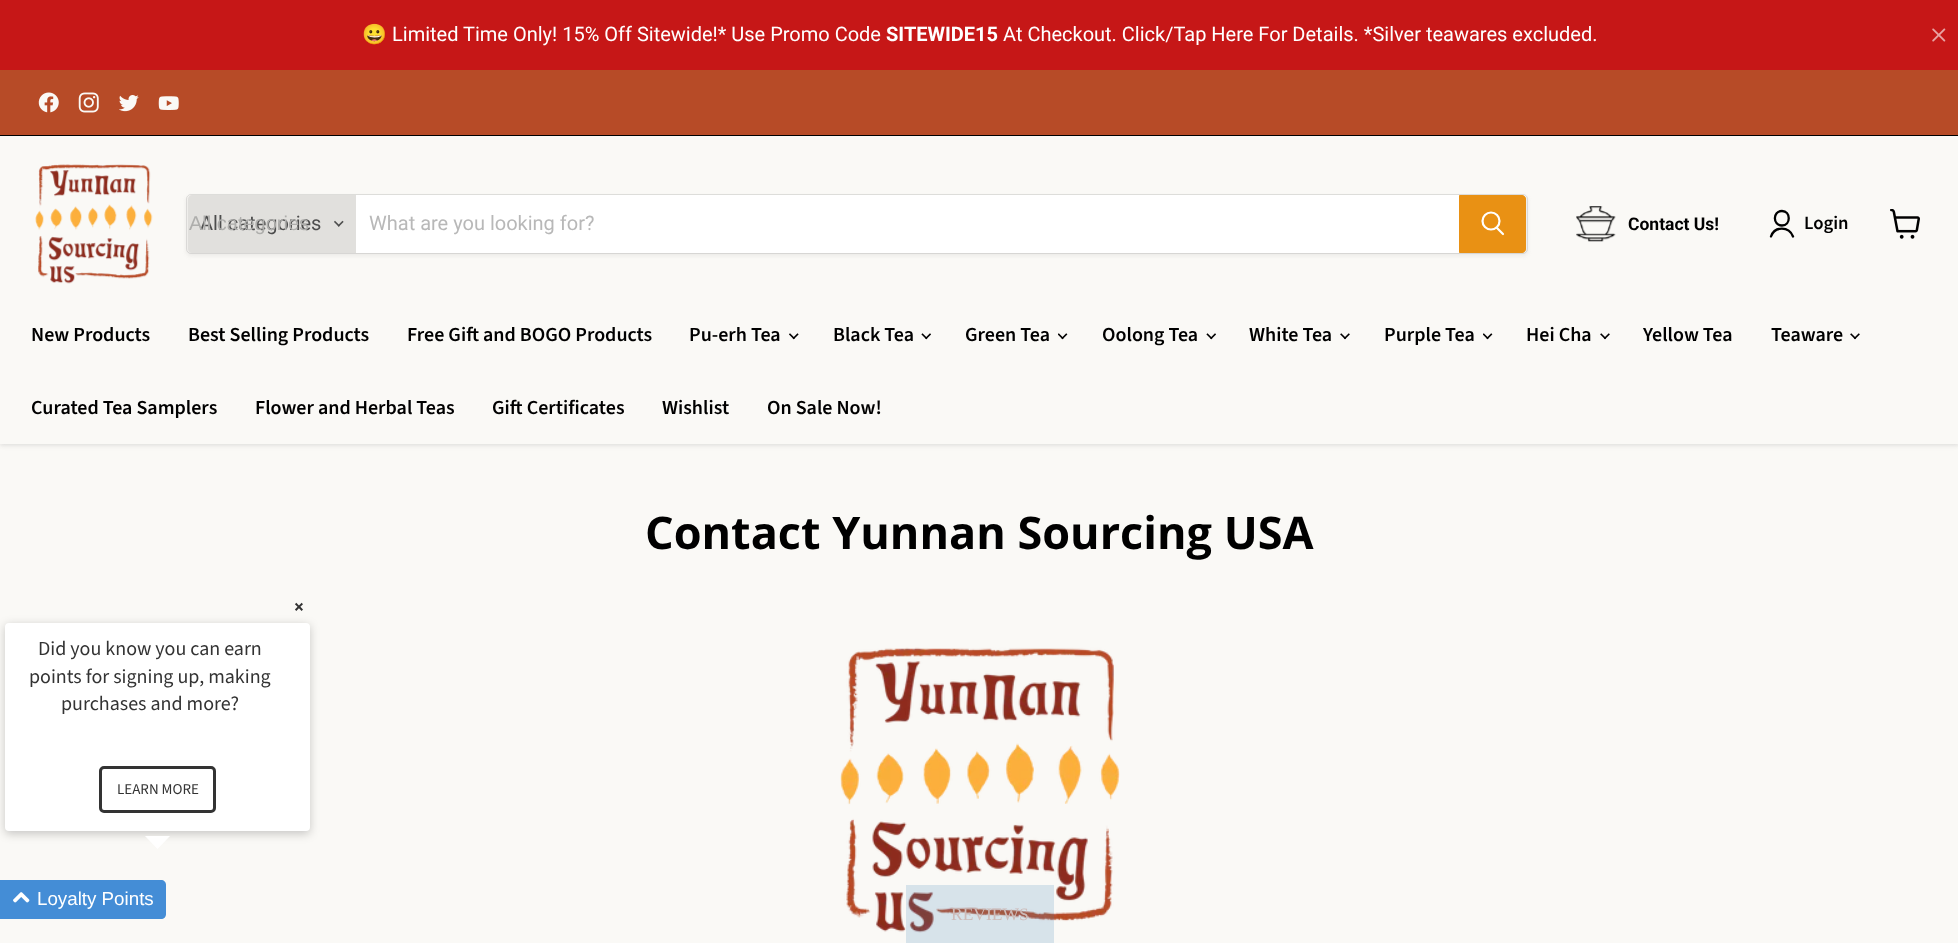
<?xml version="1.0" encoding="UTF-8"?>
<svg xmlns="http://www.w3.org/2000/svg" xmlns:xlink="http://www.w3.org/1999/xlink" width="1958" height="943">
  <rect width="100%" height="100%" fill="#faf9f6" />
  <rect width="1958" height="70" fill="#c61717" />
  <image x="1932" y="28" width="14" height="14" xlink:href="image1.png" />
  <rect y="138" width="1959" height="307" fill="#7d7d7b" fill-opacity="0.25" filter="blur(2.5px)" />
  <rect y="70" width="1958" height="65" fill="#b74b27" />
  <rect y="135" width="1958" height="1" fill="#000000" />
  <image x="38" y="92" width="21" height="21" xlink:href="image2.png" />
  <image x="78" y="92" width="21" height="21" xlink:href="image3.png" />
  <image x="119" y="95" width="20" height="17" xlink:href="image4.png" />
  <image x="158" y="96" width="21" height="14" xlink:href="image5.png" />
  <rect y="136" width="1958" height="308" fill="#faf9f6" />
  <image x="35" y="164" width="118" height="120" xlink:href="image6.png" />
  <rect x="186" y="196" width="1342" height="60" rx="5" fill="#7d7d7b" fill-opacity="0.11" filter="blur(2px)" />
  <rect x="186.5" y="194.5" width="1341" height="59" rx="4.5" fill="none" stroke="#7d7d7b" stroke-opacity="0.2" />
  <path d="M 192 195 h 164 v 58 h -164 c -2 0 -4 -2 -4 -4 v -50 c 0 -2 2 -4 4 -4 z" fill="#e1e0dd" />
  <image x="334" y="220" width="10" height="7" xlink:href="image7.png" />
  <rect x="356" y="195" width="1103" height="58" fill="#ffffff" />
  <path d="M 1459.5 195.5 h 62.5 c 2 0 3.5 1.5 3.5 3.5 v 50 c 0 2 -1.5 3.5 -3.5 3.5 h -62.5 z" fill="#e99114" stroke="#e99114" />
  <path d="M 1503 234 l -6 -6" fill="none" stroke="#ffffff" stroke-width="2.2" stroke-linecap="round" />
  <circle cx="1491" cy="221" r="8.5" fill="none" stroke="#ffffff" stroke-width="2.2" />
  <image x="1576" y="206" width="40" height="36" xlink:href="image8.png" />
  <path d="M 1782 225.5 c 9 0 9 -14.5 0 -14.5 c -9.5 0 -9.5 14.5 0 14.5 z m 11 11 c -4 -10.5 -18.5 -10.5 -22 0" fill="none" stroke="#000000" stroke-width="2.3" stroke-linecap="round" stroke-linejoin="round" />
  <image x="1890" y="209" width="30" height="30" xlink:href="image9.png" />
  <image x="789" y="333" width="10" height="7" xlink:href="image10.png" />
  <image x="921" y="333" width="10" height="7" xlink:href="image11.png" />
  <image x="1058" y="333" width="10" height="7" xlink:href="image12.png" />
  <image x="1206" y="333" width="10" height="7" xlink:href="image11.png" />
  <image x="1340" y="333" width="10" height="7" xlink:href="image13.png" />
  <image x="1483" y="333" width="10" height="7" xlink:href="image12.png" />
  <image x="1600" y="333" width="10" height="7" xlink:href="image13.png" />
  <image x="1850" y="333" width="10" height="7" xlink:href="image13.png" />
  <image x="840" y="647" width="280" height="286" xlink:href="image14.png" />
  <rect x="5" y="625" width="305" height="209" rx="4" fill="#000000" fill-opacity="0.2" filter="blur(5px)" />
  <rect x="5" y="623" width="305" height="208" rx="4" fill="#ffffff" />
  <rect x="100.5" y="767.5" width="114" height="44" rx="3.5" fill="none" stroke="#333333" stroke-width="3" />
  <path d="M 145 836 h 25 l -12.5 13 z" fill="#ffffff" />
  <path d="M 0 880 h 161 c 3 0 5 2 5 5 v 29 c 0 3 -2 5 -5 5 h -161 z" fill="#448dd6" />
  <image x="13" y="892" width="17" height="11" xlink:href="image15.png" />
  <rect x="906" y="885" width="148" height="58" fill="#498cbc" fill-opacity="0.2" />
  <text x="362" y="41" style="font-family: Noto Color Emoji; font-size: 20px; fill: #ffffff">😀</text>
  <text x="392" y="41" style="font-family: Roboto; font-size: 20px; fill: #ffffff">Limited Time Only! 15% Off Sitewide!* Use Promo Code</text>
  <text x="886" y="41" style="font-family: Roboto; font-size: 20px; font-weight: bold; fill: #ffffff">SITEWIDE15</text>
  <text x="1003" y="41" style="font-family: Roboto; font-size: 20px; fill: #ffffff">At Checkout. Click/Tap Here For Details. *Silver teawares excluded.</text>
  <text x="200" y="230" style="font-family: Roboto; font-size: 20px; fill: #4d4d4d">All categories</text>
  <text x="189" y="230" style="font-family: Liberation Sans; font-size: 20px; fill: #aeaeac">All categories</text>
  <text x="369" y="230" style="font-family: Roboto; font-size: 20px; fill: #b8b8b8">What are you looking for?</text>
  <text x="1628" y="230" style="font-family: Roboto; font-size: 17.5px; font-weight: bold; fill: #000000">Contact Us!</text>
  <text x="1804" y="229" style="font-family: Source Sans Pro; font-size: 18.75px; font-weight: 600; fill: #000000">Login</text>
  <text x="31" y="341" style="font-family: Source Sans Pro; font-size: 20px; font-weight: 600; fill: #000000">New Products</text>
  <text x="188" y="341" style="font-family: Source Sans Pro; font-size: 20px; font-weight: 600; fill: #000000">Best Selling Products</text>
  <text x="407" y="341" style="font-family: Source Sans Pro; font-size: 20px; font-weight: 600; fill: #000000">Free Gift and BOGO Products</text>
  <text x="689" y="341" style="font-family: Source Sans Pro; font-size: 20px; font-weight: 600; fill: #000000">Pu-erh Tea</text>
  <text x="833" y="341" style="font-family: Source Sans Pro; font-size: 20px; font-weight: 600; fill: #000000">Black Tea</text>
  <text x="965" y="341" style="font-family: Source Sans Pro; font-size: 20px; font-weight: 600; fill: #000000">Green Tea</text>
  <text x="1102" y="341" style="font-family: Source Sans Pro; font-size: 20px; font-weight: 600; fill: #000000">Oolong Tea</text>
  <text x="1249" y="341" style="font-family: Source Sans Pro; font-size: 20px; font-weight: 600; fill: #000000">White Tea</text>
  <text x="1384" y="341" style="font-family: Source Sans Pro; font-size: 20px; font-weight: 600; fill: #000000">Purple Tea</text>
  <text x="1526" y="341" style="font-family: Source Sans Pro; font-size: 20px; font-weight: 600; fill: #000000">Hei Cha</text>
  <text x="1643" y="341" style="font-family: Source Sans Pro; font-size: 20px; font-weight: 600; fill: #000000">Yellow Tea</text>
  <text x="1771" y="341" style="font-family: Source Sans Pro; font-size: 20px; font-weight: 600; fill: #000000">Teaware</text>
  <text x="31" y="414" style="font-family: Source Sans Pro; font-size: 20px; font-weight: 600; fill: #000000">Curated Tea Samplers</text>
  <text x="255" y="414" style="font-family: Source Sans Pro; font-size: 20px; font-weight: 600; fill: #000000">Flower and Herbal Teas</text>
  <text x="492" y="414" style="font-family: Source Sans Pro; font-size: 20px; font-weight: 600; fill: #000000">Gift Certificates</text>
  <text x="662" y="414" style="font-family: Source Sans Pro; font-size: 20px; font-weight: 600; fill: #000000">Wishlist</text>
  <text x="767" y="414" style="font-family: Source Sans Pro; font-size: 20px; font-weight: 600; fill: #000000">On Sale Now!</text>
  <text x="645" y="549" style="font-family: Open Sans; font-size: 45px; font-weight: bold; fill: #000000">Contact Yunnan Sourcing USA</text>
  <text x="294" y="613" style="font-family: Source Sans Pro; font-size: 18.75px; font-weight: bold; fill: #333333">×</text>
  <text x="38" y="655" style="font-family: Source Sans Pro; font-size: 20px; fill: #333333">Did you know you can earn</text>
  <text x="29" y="683" style="font-family: Source Sans Pro; font-size: 20px; fill: #333333">points for signing up, making</text>
  <text x="61" y="710" style="font-family: Source Sans Pro; font-size: 20px; fill: #333333">purchases and more?</text>
  <text x="117" y="794" style="font-family: Source Sans Pro; font-size: 15px; fill: #333333">LEARN MORE</text>
  <text x="37" y="905" style="font-family: Liberation Sans; font-size: 18.75px; fill: #ffffff">Loyalty Points</text>
  <text x="951" y="920" style="font-family: Liberation Serif; font-size: 17.5px; fill: #cdbbb9">REVIEWS</text>
</svg>
